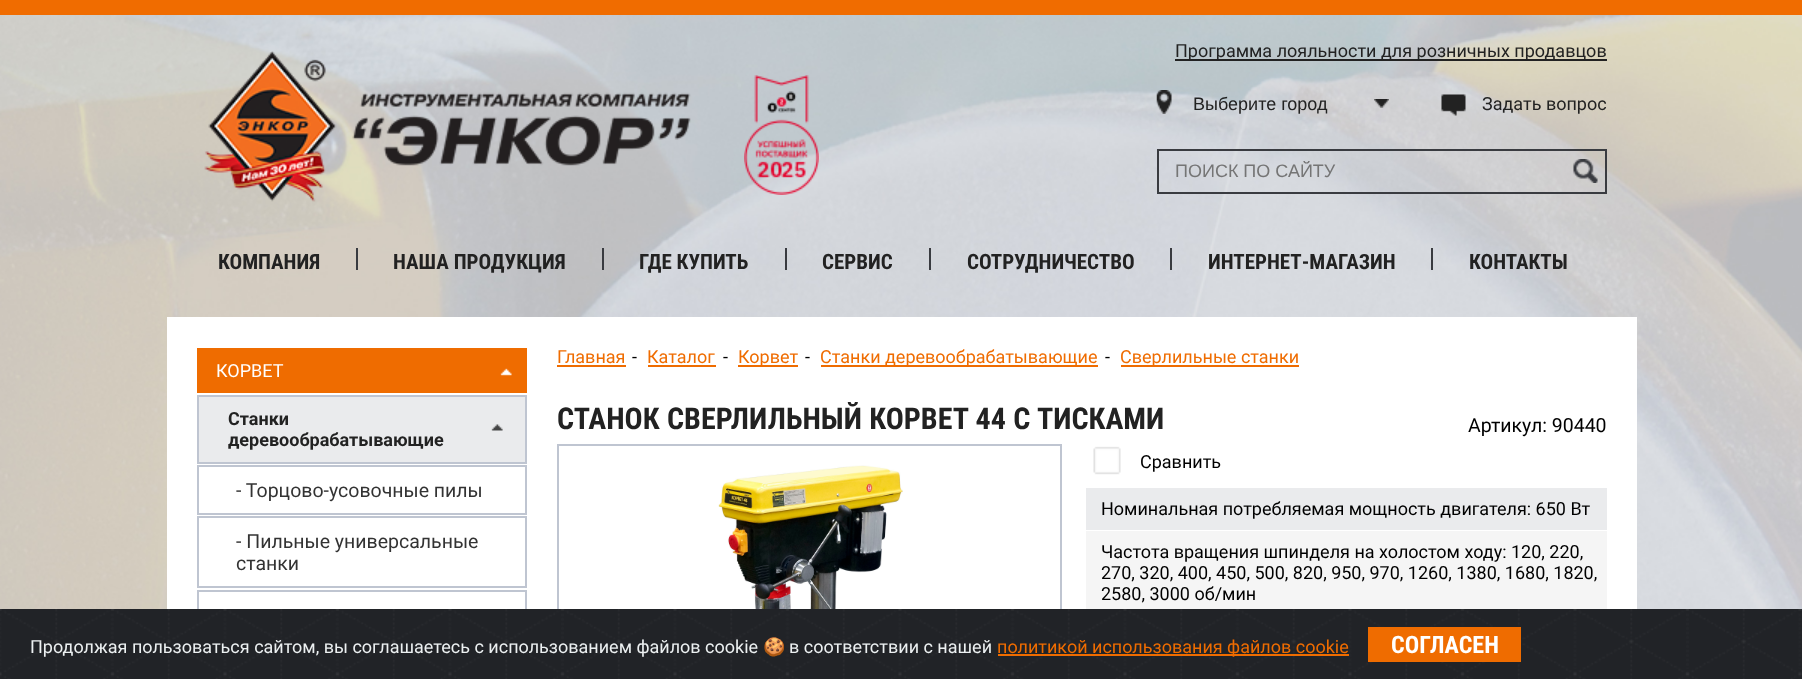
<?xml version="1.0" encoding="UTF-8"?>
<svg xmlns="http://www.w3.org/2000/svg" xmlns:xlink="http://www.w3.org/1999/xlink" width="1802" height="679">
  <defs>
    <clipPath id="clip1"><rect x="1175" y="161" width="393" height="21" /></clipPath>
  </defs>
  <rect width="100%" height="100%" fill="#ffffff" />
  <image x="0" y="15" width="1802" height="594" xlink:href="image1.png" />
  <rect width="1802" height="15" fill="#f06c00" />
  <image x="204" y="51" width="487" height="151" xlink:href="image2.png" />
  <image x="744" y="75" width="75" height="120" xlink:href="image3.png" />
  <rect x="1175" y="59" width="432" height="2" fill="#222222" />
  <image x="1156" y="90" width="16" height="24" xlink:href="image4.png" />
  <image x="1374" y="99" width="15" height="9" xlink:href="image5.png" />
  <image x="1441" y="94" width="25" height="22" xlink:href="image6.png" />
  <rect x="1158" y="150" width="448" height="43" fill="none" stroke="#393b40" stroke-width="2" />
  <image x="1573" y="159" width="25" height="24" xlink:href="image7.png" />
  <rect x="356" y="248" width="2" height="22" fill="#393b40" />
  <rect x="602" y="248" width="2" height="22" fill="#393b40" />
  <rect x="785" y="248" width="2" height="22" fill="#393b40" />
  <rect x="929" y="248" width="2" height="22" fill="#393b40" />
  <rect x="1170" y="248" width="2" height="22" fill="#393b40" />
  <rect x="1431" y="248" width="2" height="22" fill="#393b40" />
  <rect x="167" y="317" width="1470" height="292" fill="#ffffff" />
  <rect x="197" y="348" width="330" height="45" fill="#ef6c00" />
  <image x="500" y="368" width="12" height="8" xlink:href="image8.png" />
  <rect x="198" y="396" width="328" height="67" fill="#eaebed" stroke="#bfc5d1" stroke-width="2" />
  <image x="491" y="424" width="12" height="7" xlink:href="image9.png" />
  <rect x="198" y="466" width="328" height="48" fill="none" stroke="#bfc5d1" stroke-width="2" />
  <rect x="198" y="517" width="328" height="70" fill="none" stroke="#bfc5d1" stroke-width="2" />
  <rect x="198" y="591" width="328" height="47" fill="none" stroke="#bfc5d1" stroke-width="2" />
  <rect x="557" y="365" width="69" height="2" fill="#ef6c00" />
  <rect x="648" y="365" width="68" height="2" fill="#ef6c00" />
  <rect x="738" y="365" width="60" height="2" fill="#ef6c00" />
  <rect x="821" y="365" width="277" height="2" fill="#ef6c00" />
  <rect x="1121" y="365" width="178" height="2" fill="#ef6c00" />
  <image x="718" y="465" width="185" height="144" xlink:href="image10.png" />
  <rect x="558" y="445" width="503" height="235" fill="none" stroke="#bfc5d1" stroke-width="2" />
  <image x="1093" y="446" width="28" height="29" xlink:href="image11.png" />
  <rect x="1086" y="488" width="521" height="42" fill="#eaebed" />
  <rect x="1086" y="531" width="521" height="78" fill="#f5f5f5" />
  <image x="0" y="609" width="1802" height="70" xlink:href="image12.png" />
  <rect x="998" y="654" width="351" height="2" fill="#ef6c00" />
  <rect x="1368" y="627" width="153" height="35" fill="#ef6c00" />
  <text x="1175" y="57" style="font-family: Roboto; font-size: 18px; fill: #222222">Программа лояльности для розничных продавцов</text>
  <text x="1193" y="110" style="font-family: Liberation Sans; font-size: 18px; fill: #222222">Выберите город</text>
  <text x="1482" y="110" style="font-family: Roboto; font-size: 18px; fill: #222222">Задать вопрос</text>
  <g clip-path="url(#clip1)">
    <text x="1175" y="177" style="font-family: Liberation Sans; font-size: 18px; fill: #757575">ПОИСК ПО САЙТУ</text>
  </g>
  <text x="218" y="269" style="font-family: Roboto Condensed; font-size: 21px; font-weight: bold; fill: #222222">КОМПАНИЯ</text>
  <text x="393" y="269" style="font-family: Roboto Condensed; font-size: 21px; font-weight: bold; fill: #222222">НАША ПРОДУКЦИЯ</text>
  <text x="639" y="269" style="font-family: Roboto Condensed; font-size: 21px; font-weight: bold; fill: #222222">ГДЕ КУПИТЬ</text>
  <text x="822" y="269" style="font-family: Roboto Condensed; font-size: 21px; font-weight: bold; fill: #222222">СЕРВИС</text>
  <text x="967" y="269" style="font-family: Roboto Condensed; font-size: 21px; font-weight: bold; fill: #222222">СОТРУДНИЧЕСТВО</text>
  <text x="1208" y="269" style="font-family: Roboto Condensed; font-size: 21px; font-weight: bold; fill: #222222">ИНТЕРНЕТ-МАГАЗИН</text>
  <text x="1469" y="269" style="font-family: Roboto Condensed; font-size: 21px; font-weight: bold; fill: #222222">КОНТАКТЫ</text>
  <text x="216" y="377" style="font-family: Roboto; font-size: 18px; fill: #ffffff">КОРВЕТ</text>
  <text x="228" y="425" style="font-family: Roboto; font-size: 18px; font-weight: bold; fill: #222222">Станки</text>
  <text x="228" y="446" style="font-family: Roboto; font-size: 18px; font-weight: bold; fill: #222222">деревообрабатывающие</text>
  <text x="236" y="497" style="font-family: Roboto; font-size: 19.5px; fill: #333333">- Торцово-усовочные пилы</text>
  <text x="236" y="548" style="font-family: Roboto; font-size: 19.5px; fill: #333333">- Пильные универсальные</text>
  <text x="236" y="570" style="font-family: Roboto; font-size: 19.5px; fill: #333333">станки</text>
  <text x="557" y="363" style="font-family: Roboto; font-size: 18px; fill: #ef6c00">Главная</text>
  <text x="632" y="363" style="font-family: Roboto; font-size: 18px; fill: #000000">-</text>
  <text x="647" y="363" style="font-family: Roboto; font-size: 18px; fill: #ef6c00">Каталог</text>
  <text x="723" y="363" style="font-family: Roboto; font-size: 18px; fill: #000000">-</text>
  <text x="738" y="363" style="font-family: Roboto; font-size: 18px; fill: #ef6c00">Корвет</text>
  <text x="805" y="363" style="font-family: Roboto; font-size: 18px; fill: #000000">-</text>
  <text x="820" y="363" style="font-family: Roboto; font-size: 18px; fill: #ef6c00">Станки деревообрабатывающие</text>
  <text x="1105" y="363" style="font-family: Roboto; font-size: 18px; fill: #000000">-</text>
  <text x="1120" y="363" style="font-family: Roboto; font-size: 18px; fill: #ef6c00">Сверлильные станки</text>
  <text x="557" y="429" word-spacing="0.5" style="font-family: Roboto Condensed; font-size: 30px; font-weight: bold; fill: #222222">СТАНОК СВЕРЛИЛЬНЫЙ КОРВЕТ 44 С ТИСКАМИ</text>
  <text x="1468" y="432" style="font-family: Roboto; font-size: 19.5px; fill: #000000">Артикул: 90440</text>
  <text x="1140" y="468" style="font-family: Roboto; font-size: 18px; fill: #000000">Сравнить</text>
  <text x="1101" y="515" style="font-family: Roboto; font-size: 18px; fill: #000000">Номинальная потребляемая мощность двигателя: 650 Вт</text>
  <text x="1101" y="558" style="font-family: Roboto; font-size: 18px; fill: #000000">Частота вращения шпинделя на холостом ходу: 120, 220,</text>
  <text x="1101" y="579" style="font-family: Roboto; font-size: 18px; fill: #000000">270, 320, 400, 450, 500, 820, 950, 970, 1260, 1380, 1680, 1820,</text>
  <text x="1101" y="600" style="font-family: Roboto; font-size: 18px; fill: #000000">2580, 3000 об/мин</text>
  <text x="30" y="653" style="font-family: Roboto; font-size: 18px; fill: #ecf0f1">Продолжая пользоваться сайтом, вы соглашаетесь с использованием файлов cookie</text>
  <text x="763" y="653" style="font-family: Noto Color Emoji; font-size: 18px; fill: #ecf0f1">🍪</text>
  <text x="789" y="653" style="font-family: Roboto; font-size: 18px; fill: #ecf0f1">в соответствии с нашей</text>
  <text x="997" y="653" style="font-family: Roboto; font-size: 18px; fill: #ef6c00">политикой использования файлов cookie</text>
  <text x="1391" y="653" style="font-family: Roboto Condensed; font-size: 24px; font-weight: bold; fill: #ffffff">СОГЛАСЕН</text>
</svg>
